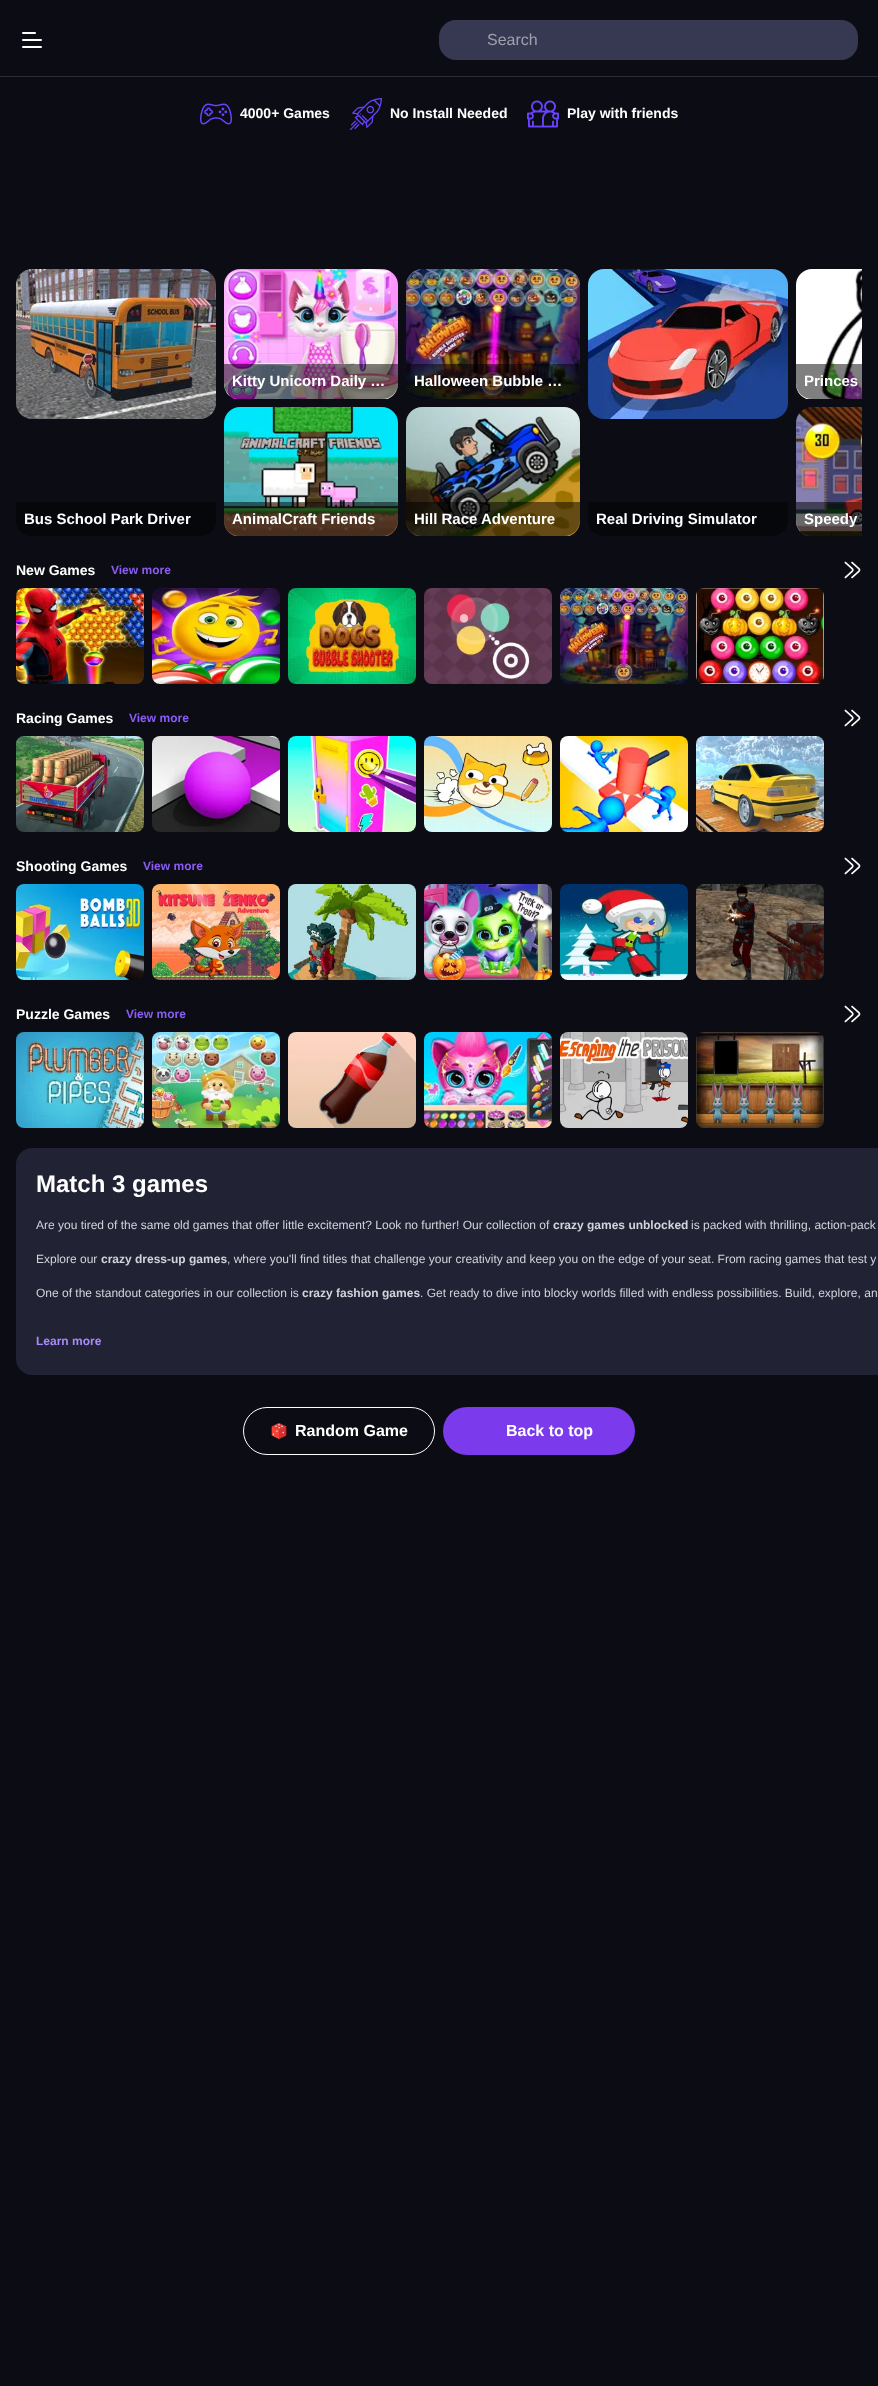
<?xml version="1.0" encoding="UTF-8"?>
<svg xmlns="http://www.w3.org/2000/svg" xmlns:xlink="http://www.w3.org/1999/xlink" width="878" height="2386">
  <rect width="100%" height="100%" fill="#0c0d14" />
  <rect y="76" width="878" height="1" fill="#2d2e3b" />
  <image x="22" y="32" width="20" height="16" xlink:href="image1.png" />
  <rect x="439" y="20" width="419" height="40" rx="17" fill="#373952" />
  <image x="200" y="103" width="32" height="22" xlink:href="image2.png" />
  <image x="350" y="98" width="32" height="32" xlink:href="image3.png" />
  <image x="527" y="100" width="32" height="28" xlink:href="image4.png" />
  <image x="16" y="269" width="200" height="150" xlink:href="image5.png" />
  <path d="M 16 502 h 200 v 18 c 0 9 -7 16 -16 16 h -168 c -9 0 -16 -7 -16 -16 z" fill="#06070a" />
  <image x="224" y="269" width="174" height="130" xlink:href="image6.png" />
  <path d="M 224 364 h 174 v 19 c 0 9 -7 16 -16 16 h -142 c -9 0 -16 -7 -16 -16 z" fill="#000000" fill-opacity="0.5" />
  <image x="406" y="269" width="174" height="130" xlink:href="image7.png" />
  <path d="M 406 364 h 174 v 19 c 0 9 -7 16 -16 16 h -142 c -9 0 -16 -7 -16 -16 z" fill="#000000" fill-opacity="0.5" />
  <image x="224" y="407" width="174" height="129" xlink:href="image8.png" />
  <path d="M 224 502 h 174 v 18 c 0 9 -7 16 -16 16 h -142 c -9 0 -16 -7 -16 -16 z" fill="#000000" fill-opacity="0.5" />
  <image x="406" y="407" width="174" height="129" xlink:href="image9.png" />
  <path d="M 406 502 h 174 v 18 c 0 9 -7 16 -16 16 h -142 c -9 0 -16 -7 -16 -16 z" fill="#000000" fill-opacity="0.5" />
  <image x="588" y="269" width="200" height="150" xlink:href="image10.png" />
  <path d="M 588 502 h 200 v 18 c 0 9 -7 16 -16 16 h -168 c -9 0 -16 -7 -16 -16 z" fill="#06070a" />
  <image x="796" y="269" width="66" height="130" xlink:href="image11.png" />
  <path d="M 796 364 h 66 v 35 h -50 c -9 0 -16 -7 -16 -16 z" fill="#000000" fill-opacity="0.5" />
  <image x="796" y="407" width="66" height="129" xlink:href="image12.png" />
  <path d="M 796 502 h 66 v 34 h -50 c -9 0 -16 -7 -16 -16 z" fill="#000000" fill-opacity="0.5" />
  <image x="844" y="561" width="17" height="18" xlink:href="image13.png" />
  <image x="16" y="588" width="128" height="96" xlink:href="image14.png" />
  <image x="152" y="588" width="128" height="96" xlink:href="image15.png" />
  <image x="288" y="588" width="128" height="96" xlink:href="image16.png" />
  <image x="424" y="588" width="128" height="96" xlink:href="image17.png" />
  <image x="560" y="588" width="128" height="96" xlink:href="image18.png" />
  <image x="696" y="588" width="128" height="96" xlink:href="image19.png" />
  <image x="844" y="709" width="17" height="18" xlink:href="image13.png" />
  <image x="16" y="736" width="128" height="96" xlink:href="image20.png" />
  <image x="152" y="736" width="128" height="96" xlink:href="image21.png" />
  <image x="288" y="736" width="128" height="96" xlink:href="image22.png" />
  <image x="424" y="736" width="128" height="96" xlink:href="image23.png" />
  <image x="560" y="736" width="128" height="96" xlink:href="image24.png" />
  <image x="696" y="736" width="128" height="96" xlink:href="image25.png" />
  <image x="844" y="857" width="17" height="18" xlink:href="image13.png" />
  <image x="16" y="884" width="128" height="96" xlink:href="image26.png" />
  <image x="152" y="884" width="128" height="96" xlink:href="image27.png" />
  <image x="288" y="884" width="128" height="96" xlink:href="image28.png" />
  <image x="424" y="884" width="128" height="96" xlink:href="image29.png" />
  <image x="560" y="884" width="128" height="96" xlink:href="image30.png" />
  <image x="696" y="884" width="128" height="96" xlink:href="image31.png" />
  <image x="844" y="1005" width="17" height="18" xlink:href="image13.png" />
  <image x="16" y="1032" width="128" height="96" xlink:href="image32.png" />
  <image x="152" y="1032" width="128" height="96" xlink:href="image33.png" />
  <image x="288" y="1032" width="128" height="96" xlink:href="image34.png" />
  <image x="424" y="1032" width="128" height="96" xlink:href="image35.png" />
  <image x="560" y="1032" width="128" height="96" xlink:href="image36.png" />
  <image x="696" y="1032" width="128" height="96" xlink:href="image37.png" />
  <rect x="16" y="1148" width="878" height="227" rx="16" fill="#212233" />
  <rect x="243.5" y="1407.5" width="191" height="47" rx="23.5" fill="none" stroke="#ffffff" />
  <image x="271" y="1423" width="16" height="16" xlink:href="image38.png" />
  <rect x="443" y="1407" width="192" height="48" rx="24" fill="#7c3aed" />
  <text x="487" y="45" style="font-family: Liberation Sans; font-size: 16px; fill: #9ca3af">Search</text>
  <text x="240" y="118" style="font-family: Liberation Sans; font-size: 14px; font-weight: bold; fill: #ffffff">4000+ Games</text>
  <text x="390" y="118" style="font-family: Liberation Sans; font-size: 14px; font-weight: bold; fill: #ffffff">No Install Needed</text>
  <text x="567" y="118" style="font-family: Liberation Sans; font-size: 14px; font-weight: bold; fill: #ffffff">Play with friends</text>
  <text x="24" y="524" style="font-family: Liberation Sans; font-size: 15px; font-weight: bold; fill: #ffffff">Bus School Park Driver</text>
  <text x="232" y="386" style="font-family: Liberation Sans; font-size: 15px; font-weight: bold; fill: #ffffff">Kitty Unicorn Daily …</text>
  <text x="414" y="386" style="font-family: Liberation Sans; font-size: 15px; font-weight: bold; fill: #ffffff">Halloween Bubble …</text>
  <text x="232" y="524" style="font-family: Liberation Sans; font-size: 15px; font-weight: bold; fill: #ffffff">AnimalCraft Friends</text>
  <text x="414" y="524" style="font-family: Liberation Sans; font-size: 15px; font-weight: bold; fill: #ffffff">Hill Race Adventure</text>
  <text x="596" y="524" style="font-family: Liberation Sans; font-size: 15px; font-weight: bold; fill: #ffffff">Real Driving Simulator</text>
  <text x="804" y="386" style="font-family: Liberation Sans; font-size: 15px; font-weight: bold; fill: #ffffff">Princes</text>
  <text x="804" y="524" style="font-family: Liberation Sans; font-size: 15px; font-weight: bold; fill: #ffffff">Speedy</text>
  <text x="16" y="575" style="font-family: Liberation Sans; font-size: 14px; font-weight: bold; fill: #ffffff">New Games</text>
  <text x="111" y="574" style="font-family: Liberation Sans; font-size: 12px; font-weight: bold; fill: #8b5cf6">View more</text>
  <text x="16" y="723" style="font-family: Liberation Sans; font-size: 14px; font-weight: bold; fill: #ffffff">Racing Games</text>
  <text x="129" y="722" style="font-family: Liberation Sans; font-size: 12px; font-weight: bold; fill: #8b5cf6">View more</text>
  <text x="16" y="871" style="font-family: Liberation Sans; font-size: 14px; font-weight: bold; fill: #ffffff">Shooting Games</text>
  <text x="143" y="870" style="font-family: Liberation Sans; font-size: 12px; font-weight: bold; fill: #8b5cf6">View more</text>
  <text x="16" y="1019" style="font-family: Liberation Sans; font-size: 14px; font-weight: bold; fill: #ffffff">Puzzle Games</text>
  <text x="126" y="1018" style="font-family: Liberation Sans; font-size: 12px; font-weight: bold; fill: #8b5cf6">View more</text>
  <text x="36" y="1192" style="font-family: Liberation Sans; font-size: 24px; font-weight: bold; fill: #ffffff">Match 3 games</text>
  <text x="36" y="1229" style="font-family: Liberation Sans; font-size: 12px; fill: #d1d5db">Are you tired of the same old games that offer little excitement? Look no further! Our collection of</text>
  <text x="553" y="1229" style="font-family: Liberation Sans; font-size: 12px; font-weight: bold; fill: #d1d5db">crazy games unblocked</text>
  <text x="691" y="1229" style="font-family: Liberation Sans; font-size: 12px; fill: #d1d5db">is packed with thrilling, action-pack</text>
  <text x="36" y="1263" style="font-family: Liberation Sans; font-size: 12px; fill: #d1d5db">Explore our</text>
  <text x="101" y="1263" style="font-family: Liberation Sans; font-size: 12px; font-weight: bold; fill: #d1d5db">crazy dress-up games</text>
  <text x="227" y="1263" style="font-family: Liberation Sans; font-size: 12px; fill: #d1d5db">, where you'll find titles that challenge your creativity and keep you on the edge of your seat. From racing games that test y</text>
  <text x="36" y="1297" style="font-family: Liberation Sans; font-size: 12px; fill: #d1d5db">One of the standout categories in our collection is</text>
  <text x="302" y="1297" style="font-family: Liberation Sans; font-size: 12px; font-weight: bold; fill: #d1d5db">crazy fashion games</text>
  <text x="420" y="1297" style="font-family: Liberation Sans; font-size: 12px; fill: #d1d5db">. Get ready to dive into blocky worlds filled with endless possibilities. Build, explore, an</text>
  <text x="36" y="1345" style="font-family: Liberation Sans; font-size: 12px; font-weight: bold; fill: #a78bfa">Learn more</text>
  <text x="295" y="1436" style="font-family: Liberation Sans; font-size: 16px; font-weight: bold; fill: #ffffff">Random Game</text>
  <text x="506" y="1436" style="font-family: Liberation Sans; font-size: 16px; font-weight: bold; fill: #ffffff">Back to top</text>
</svg>
